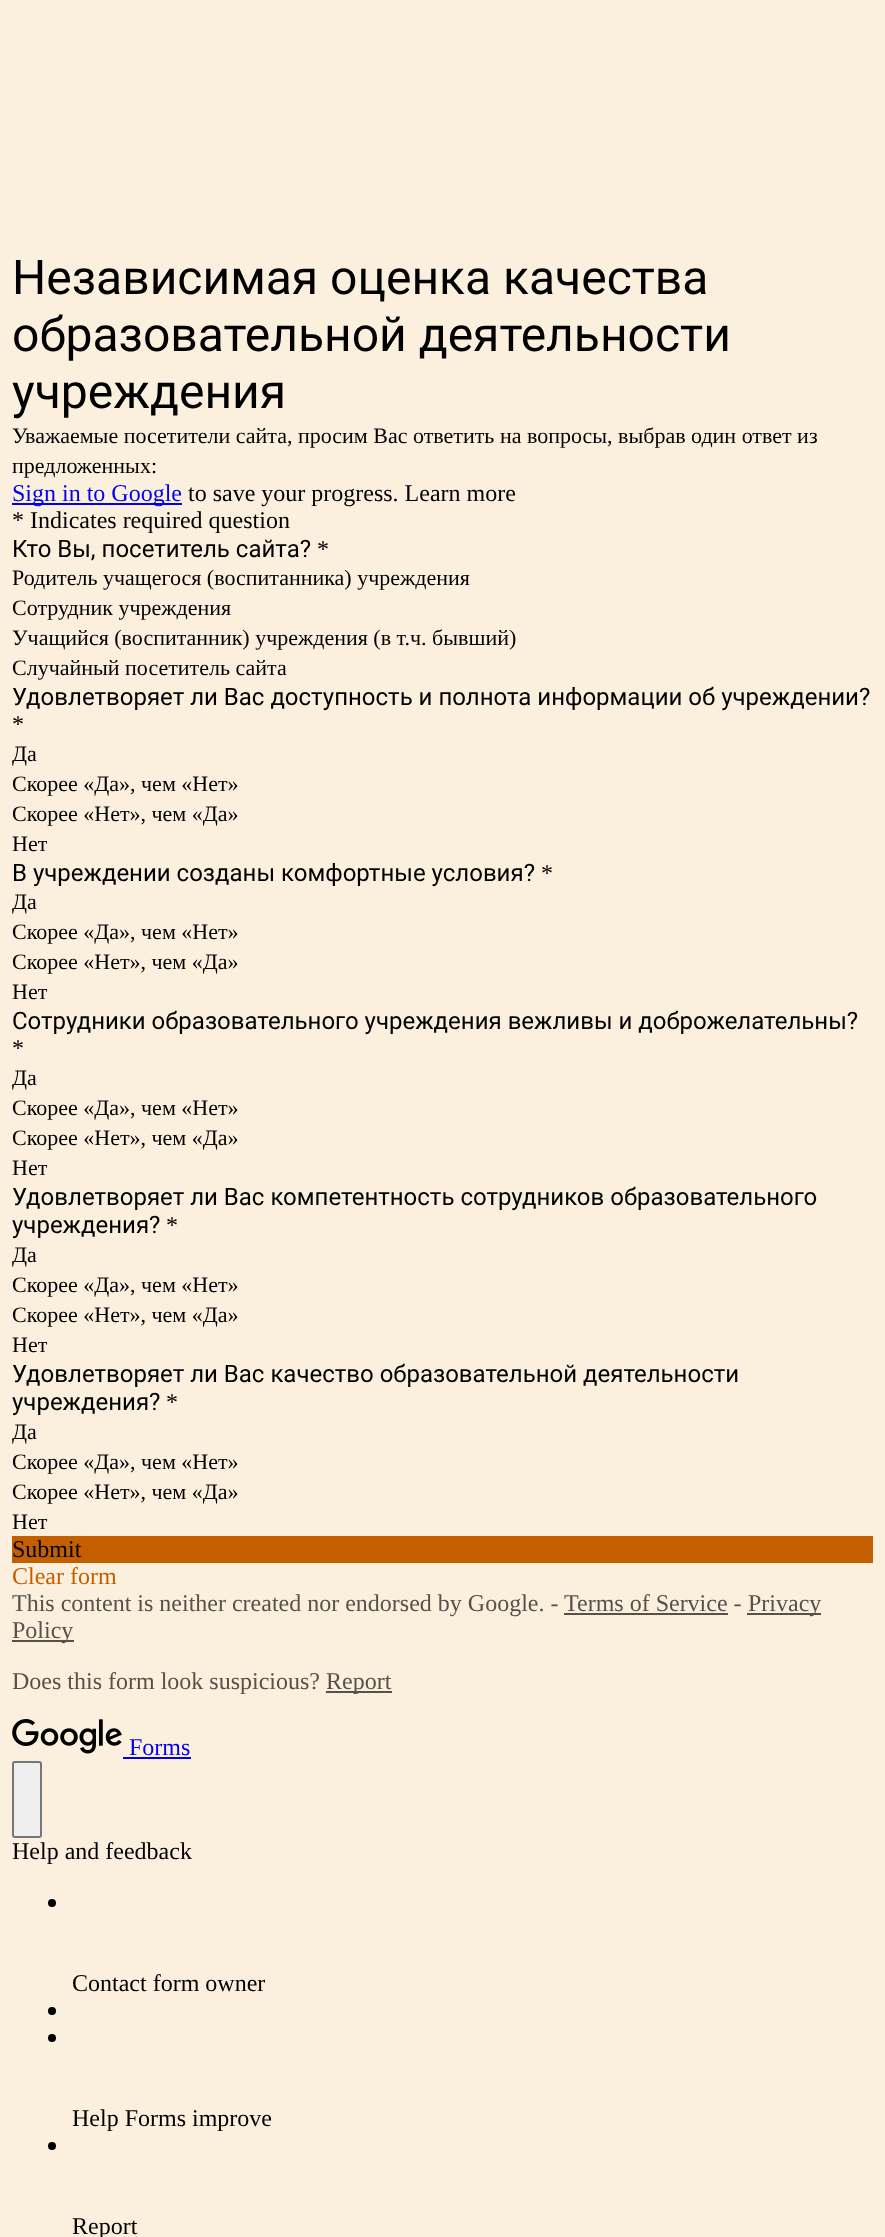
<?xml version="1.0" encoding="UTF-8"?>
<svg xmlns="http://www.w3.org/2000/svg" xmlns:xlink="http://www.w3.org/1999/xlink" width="885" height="2237">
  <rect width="100%" height="100%" fill="#fbf0dd" />
  <rect x="12" y="503" width="170" height="2" fill="#0000ee" />
  <rect x="12" y="1536" width="861" height="27" fill="#c45f00" />
  <rect x="564" y="1613" width="164" height="2" fill="#55524b" />
  <rect x="747" y="1613" width="74" height="2" fill="#55524b" />
  <rect x="12" y="1640" width="62" height="2" fill="#55524b" />
  <rect x="326" y="1691" width="66" height="2" fill="#55524b" />
  <image x="12" y="1719" width="110" height="35" xlink:href="image1.png" />
  <rect x="123" y="1757" width="68" height="2" fill="#0000ee" />
  <rect x="13" y="1762" width="28" height="75" rx="2" fill="#efefef" stroke="#767676" stroke-width="2" />
  <circle cx="52" cy="1903" r="4" fill="#000000" />
  <circle cx="52" cy="2011" r="4" fill="#000000" />
  <circle cx="52" cy="2038" r="4" fill="#000000" />
  <circle cx="52" cy="2146" r="4" fill="#000000" />
  <text x="12" y="294" style="font-family: Roboto; font-size: 48px; fill: #000000">Независимая оценка качества</text>
  <text x="12" y="351" style="font-family: Roboto; font-size: 48px; fill: #000000">образовательной деятельности</text>
  <text x="12" y="408" style="font-family: Roboto; font-size: 48px; fill: #000000">учреждения</text>
  <text x="12" y="443" style="font-family: Liberation Serif; font-size: 22px; fill: #000000">Уважаемые посетители сайта, просим Вас ответить на вопросы, выбрав один ответ из</text>
  <text x="12" y="473" style="font-family: Liberation Serif; font-size: 22px; fill: #000000">предложенных:</text>
  <text x="12" y="501" style="font-family: Liberation Serif; font-size: 24px; fill: #0000ee">Sign in to Google</text>
  <text x="188" y="501" style="font-family: Liberation Serif; font-size: 24px; fill: #000000">to save your progress. Learn more</text>
  <text x="12" y="528" style="font-family: Liberation Serif; font-size: 24px; fill: #000000">* Indicates required question</text>
  <text x="12" y="557" style="font-family: Roboto; font-size: 24px; fill: #000000">Кто Вы, посетитель сайта?</text>
  <text x="317" y="557" style="font-family: Liberation Serif; font-size: 24px; fill: #000000">*</text>
  <text x="12" y="585" style="font-family: Liberation Serif; font-size: 22px; fill: #000000">Родитель учащегося (воспитанника) учреждения</text>
  <text x="12" y="615" style="font-family: Liberation Serif; font-size: 22px; fill: #000000">Сотрудник учреждения</text>
  <text x="12" y="645" style="font-family: Liberation Serif; font-size: 22px; fill: #000000">Учащийся (воспитанник) учреждения (в т.ч. бывший)</text>
  <text x="12" y="675" style="font-family: Liberation Serif; font-size: 22px; fill: #000000">Случайный посетитель сайта</text>
  <text x="12" y="705" style="font-family: Roboto; font-size: 24px; fill: #000000">Удовлетворяет ли Вас доступность и полнота информации об учреждении?</text>
  <text x="12" y="732" style="font-family: Liberation Serif; font-size: 24px; fill: #000000">*</text>
  <text x="12" y="761" style="font-family: Liberation Serif; font-size: 22px; fill: #000000">Да</text>
  <text x="12" y="791" style="font-family: Liberation Serif; font-size: 22px; fill: #000000">Скорее «Да», чем «Нет»</text>
  <text x="12" y="821" style="font-family: Liberation Serif; font-size: 22px; fill: #000000">Скорее «Нет», чем «Да»</text>
  <text x="12" y="851" style="font-family: Liberation Serif; font-size: 22px; fill: #000000">Нет</text>
  <text x="12" y="881" style="font-family: Roboto; font-size: 24px; fill: #000000">В учреждении созданы комфортные условия?</text>
  <text x="541" y="881" style="font-family: Liberation Serif; font-size: 24px; fill: #000000">*</text>
  <text x="12" y="909" style="font-family: Liberation Serif; font-size: 22px; fill: #000000">Да</text>
  <text x="12" y="939" style="font-family: Liberation Serif; font-size: 22px; fill: #000000">Скорее «Да», чем «Нет»</text>
  <text x="12" y="969" style="font-family: Liberation Serif; font-size: 22px; fill: #000000">Скорее «Нет», чем «Да»</text>
  <text x="12" y="999" style="font-family: Liberation Serif; font-size: 22px; fill: #000000">Нет</text>
  <text x="12" y="1029" style="font-family: Roboto; font-size: 24px; fill: #000000">Сотрудники образовательного учреждения вежливы и доброжелательны?</text>
  <text x="12" y="1056" style="font-family: Liberation Serif; font-size: 24px; fill: #000000">*</text>
  <text x="12" y="1085" style="font-family: Liberation Serif; font-size: 22px; fill: #000000">Да</text>
  <text x="12" y="1115" style="font-family: Liberation Serif; font-size: 22px; fill: #000000">Скорее «Да», чем «Нет»</text>
  <text x="12" y="1145" style="font-family: Liberation Serif; font-size: 22px; fill: #000000">Скорее «Нет», чем «Да»</text>
  <text x="12" y="1175" style="font-family: Liberation Serif; font-size: 22px; fill: #000000">Нет</text>
  <text x="12" y="1205" style="font-family: Roboto; font-size: 24px; fill: #000000">Удовлетворяет ли Вас компетентность сотрудников образовательного</text>
  <text x="12" y="1233" style="font-family: Roboto; font-size: 24px; fill: #000000">учреждения?</text>
  <text x="166" y="1233" style="font-family: Liberation Serif; font-size: 24px; fill: #000000">*</text>
  <text x="12" y="1262" style="font-family: Liberation Serif; font-size: 22px; fill: #000000">Да</text>
  <text x="12" y="1292" style="font-family: Liberation Serif; font-size: 22px; fill: #000000">Скорее «Да», чем «Нет»</text>
  <text x="12" y="1322" style="font-family: Liberation Serif; font-size: 22px; fill: #000000">Скорее «Нет», чем «Да»</text>
  <text x="12" y="1352" style="font-family: Liberation Serif; font-size: 22px; fill: #000000">Нет</text>
  <text x="12" y="1382" style="font-family: Roboto; font-size: 24px; fill: #000000">Удовлетворяет ли Вас качество образовательной деятельности</text>
  <text x="12" y="1410" style="font-family: Roboto; font-size: 24px; fill: #000000">учреждения?</text>
  <text x="166" y="1410" style="font-family: Liberation Serif; font-size: 24px; fill: #000000">*</text>
  <text x="12" y="1439" style="font-family: Liberation Serif; font-size: 22px; fill: #000000">Да</text>
  <text x="12" y="1469" style="font-family: Liberation Serif; font-size: 22px; fill: #000000">Скорее «Да», чем «Нет»</text>
  <text x="12" y="1499" style="font-family: Liberation Serif; font-size: 22px; fill: #000000">Скорее «Нет», чем «Да»</text>
  <text x="12" y="1529" style="font-family: Liberation Serif; font-size: 22px; fill: #000000">Нет</text>
  <text x="12" y="1557" style="font-family: Liberation Serif; font-size: 24px; fill: #000000">Submit</text>
  <text x="12" y="1584" style="font-family: Liberation Serif; font-size: 24px; fill: #c45f00">Clear form</text>
  <text x="12" y="1611" style="font-family: Liberation Serif; font-size: 24px; fill: #55524b">This content is neither created nor endorsed by Google. -</text>
  <text x="564" y="1611" style="font-family: Liberation Serif; font-size: 24px; fill: #55524b">Terms of Service -</text>
  <text x="748" y="1611" style="font-family: Liberation Serif; font-size: 24px; fill: #55524b">Privacy</text>
  <text x="12" y="1638" style="font-family: Liberation Serif; font-size: 24px; fill: #55524b">Policy</text>
  <text x="12" y="1689" style="font-family: Liberation Serif; font-size: 24px; fill: #55524b">Does this form look suspicious?</text>
  <text x="326" y="1689" style="font-family: Liberation Serif; font-size: 24px; fill: #55524b">Report</text>
  <text x="129" y="1755" style="font-family: Liberation Serif; font-size: 24px; fill: #0000ee">Forms</text>
  <text x="12" y="1859" style="font-family: Liberation Serif; font-size: 24px; fill: #000000">Help and feedback</text>
  <text x="72" y="1991" style="font-family: Liberation Serif; font-size: 24px; fill: #000000">Contact form owner</text>
  <text x="72" y="2126" style="font-family: Liberation Serif; font-size: 24px; fill: #000000">Help Forms improve</text>
  <text x="72" y="2234" style="font-family: Liberation Serif; font-size: 24px; fill: #000000">Report</text>
</svg>
